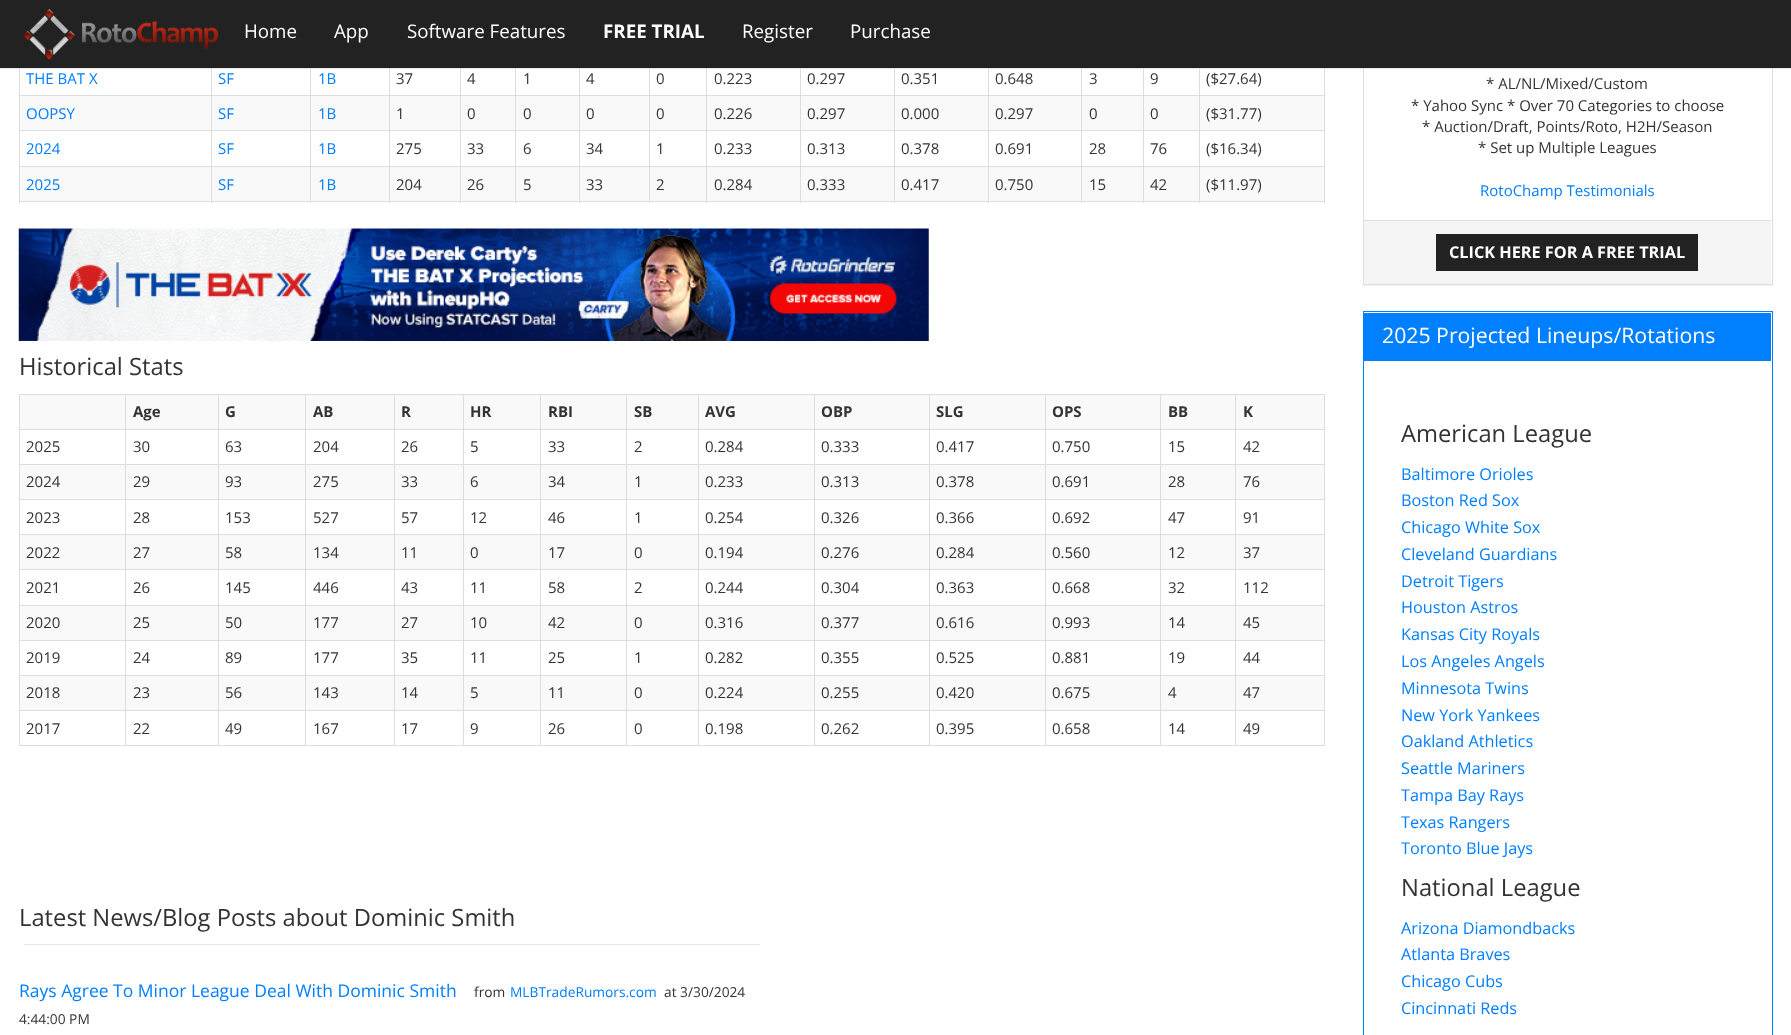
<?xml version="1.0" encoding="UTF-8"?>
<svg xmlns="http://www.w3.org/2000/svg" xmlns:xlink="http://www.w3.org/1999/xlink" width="1791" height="1035">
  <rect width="100%" height="100%" fill="#ffffff" />
  <rect x="1363" y="-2" width="410" height="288" fill="#000000" fill-opacity="0.05" filter="blur(0.5px)" />
  <rect x="1364" y="69" width="408" height="215" fill="#ffffff" />
  <rect x="1363.5" y="-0.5" width="409" height="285" fill="none" stroke="#dddddd" />
  <rect width="1791" height="68" fill="#222222" />
  <rect y="68" width="1791" height="1" fill="#e7e7e7" />
  <image x="23" y="8" width="196" height="52" xlink:href="image1.png" />
  <rect x="1324" y="69" width="1" height="134" fill="#dddddd" />
  <rect x="19" y="201" width="1306" height="1" fill="#dddddd" />
  <rect x="19" y="69" width="1" height="134" fill="#dddddd" />
  <rect x="1199" y="95" width="126" height="1" fill="#dddddd" />
  <rect x="1199" y="130" width="126" height="1" fill="#dddddd" />
  <rect x="1199" y="166" width="126" height="1" fill="#dddddd" />
  <rect x="1199" y="166" width="1" height="37" fill="#dddddd" />
  <rect x="1143" y="166" width="57" height="1" fill="#dddddd" />
  <rect x="1199" y="130" width="1" height="38" fill="#dddddd" />
  <rect x="1143" y="130" width="57" height="1" fill="#dddddd" />
  <rect x="1199" y="95" width="1" height="36" fill="#dddddd" />
  <rect x="1143" y="95" width="57" height="1" fill="#dddddd" />
  <rect x="1143" y="166" width="1" height="37" fill="#dddddd" />
  <rect x="1081" y="166" width="63" height="1" fill="#dddddd" />
  <rect x="1143" y="130" width="1" height="38" fill="#dddddd" />
  <rect x="1081" y="130" width="63" height="1" fill="#dddddd" />
  <rect x="1143" y="95" width="1" height="36" fill="#dddddd" />
  <rect x="1081" y="95" width="63" height="1" fill="#dddddd" />
  <rect x="989" y="96" width="154" height="34" fill="#f9f9f9" />
  <rect x="989" y="167" width="154" height="34" fill="#f9f9f9" />
  <rect x="1081" y="166" width="1" height="37" fill="#dddddd" />
  <rect x="988" y="166" width="95" height="1" fill="#dddddd" />
  <rect x="1081" y="130" width="1" height="38" fill="#dddddd" />
  <rect x="988" y="130" width="95" height="1" fill="#dddddd" />
  <rect x="1081" y="95" width="1" height="36" fill="#dddddd" />
  <rect x="988" y="95" width="95" height="1" fill="#dddddd" />
  <rect x="988" y="166" width="1" height="37" fill="#dddddd" />
  <rect x="894" y="166" width="95" height="1" fill="#dddddd" />
  <rect x="988" y="130" width="1" height="38" fill="#dddddd" />
  <rect x="894" y="130" width="95" height="1" fill="#dddddd" />
  <rect x="988" y="95" width="1" height="36" fill="#dddddd" />
  <rect x="894" y="95" width="95" height="1" fill="#dddddd" />
  <rect x="894" y="166" width="1" height="37" fill="#dddddd" />
  <rect x="800" y="166" width="95" height="1" fill="#dddddd" />
  <rect x="894" y="130" width="1" height="38" fill="#dddddd" />
  <rect x="800" y="130" width="95" height="1" fill="#dddddd" />
  <rect x="894" y="95" width="1" height="36" fill="#dddddd" />
  <rect x="800" y="95" width="95" height="1" fill="#dddddd" />
  <rect x="800" y="166" width="1" height="37" fill="#dddddd" />
  <rect x="706" y="166" width="95" height="1" fill="#dddddd" />
  <rect x="800" y="130" width="1" height="38" fill="#dddddd" />
  <rect x="706" y="130" width="95" height="1" fill="#dddddd" />
  <rect x="800" y="95" width="1" height="36" fill="#dddddd" />
  <rect x="706" y="95" width="95" height="1" fill="#dddddd" />
  <rect x="706" y="166" width="1" height="37" fill="#dddddd" />
  <rect x="649" y="166" width="59" height="1" fill="#dddddd" />
  <rect x="706" y="130" width="1" height="38" fill="#dddddd" />
  <rect x="649" y="130" width="59" height="1" fill="#dddddd" />
  <rect x="706" y="95" width="1" height="36" fill="#dddddd" />
  <rect x="649" y="95" width="59" height="1" fill="#dddddd" />
  <rect x="649" y="166" width="1" height="37" fill="#dddddd" />
  <rect x="579" y="166" width="71" height="1" fill="#dddddd" />
  <rect x="649" y="130" width="1" height="38" fill="#dddddd" />
  <rect x="579" y="130" width="71" height="1" fill="#dddddd" />
  <rect x="649" y="95" width="1" height="36" fill="#dddddd" />
  <rect x="579" y="95" width="71" height="1" fill="#dddddd" />
  <rect x="579" y="166" width="1" height="37" fill="#dddddd" />
  <rect x="515" y="166" width="65" height="1" fill="#dddddd" />
  <rect x="579" y="130" width="1" height="38" fill="#dddddd" />
  <rect x="515" y="130" width="65" height="1" fill="#dddddd" />
  <rect x="579" y="95" width="1" height="36" fill="#dddddd" />
  <rect x="515" y="95" width="65" height="1" fill="#dddddd" />
  <rect x="515" y="166" width="1" height="37" fill="#dddddd" />
  <rect x="460" y="166" width="56" height="1" fill="#dddddd" />
  <rect x="515" y="130" width="1" height="38" fill="#dddddd" />
  <rect x="460" y="130" width="56" height="1" fill="#dddddd" />
  <rect x="515" y="95" width="1" height="36" fill="#dddddd" />
  <rect x="460" y="95" width="56" height="1" fill="#dddddd" />
  <rect x="460" y="166" width="1" height="37" fill="#dddddd" />
  <rect x="389" y="166" width="72" height="1" fill="#dddddd" />
  <rect x="460" y="130" width="1" height="38" fill="#dddddd" />
  <rect x="389" y="130" width="72" height="1" fill="#dddddd" />
  <rect x="460" y="95" width="1" height="36" fill="#dddddd" />
  <rect x="389" y="95" width="72" height="1" fill="#dddddd" />
  <rect x="389" y="166" width="1" height="37" fill="#dddddd" />
  <rect x="310" y="166" width="80" height="1" fill="#dddddd" />
  <rect x="389" y="130" width="1" height="38" fill="#dddddd" />
  <rect x="310" y="130" width="80" height="1" fill="#dddddd" />
  <rect x="389" y="95" width="1" height="36" fill="#dddddd" />
  <rect x="310" y="95" width="80" height="1" fill="#dddddd" />
  <rect x="310" y="166" width="1" height="37" fill="#dddddd" />
  <rect x="211" y="166" width="100" height="1" fill="#dddddd" />
  <rect x="310" y="130" width="1" height="38" fill="#dddddd" />
  <rect x="211" y="130" width="100" height="1" fill="#dddddd" />
  <rect x="310" y="95" width="1" height="36" fill="#dddddd" />
  <rect x="211" y="95" width="100" height="1" fill="#dddddd" />
  <rect x="211" y="166" width="1" height="37" fill="#dddddd" />
  <rect x="19" y="166" width="194" height="1" fill="#dddddd" />
  <rect x="211" y="130" width="1" height="38" fill="#dddddd" />
  <rect x="19" y="130" width="194" height="1" fill="#dddddd" />
  <rect x="211" y="95" width="1" height="36" fill="#dddddd" />
  <rect x="19" y="95" width="194" height="1" fill="#dddddd" />
  <rect x="211" y="69" width="1" height="27" fill="#dddddd" />
  <rect x="310" y="69" width="1" height="27" fill="#dddddd" />
  <rect x="389" y="69" width="1" height="27" fill="#dddddd" />
  <rect x="460" y="69" width="1" height="27" fill="#dddddd" />
  <rect x="515" y="69" width="1" height="27" fill="#dddddd" />
  <rect x="579" y="69" width="1" height="27" fill="#dddddd" />
  <rect x="649" y="69" width="1" height="27" fill="#dddddd" />
  <rect x="706" y="69" width="1" height="27" fill="#dddddd" />
  <rect x="800" y="69" width="1" height="27" fill="#dddddd" />
  <rect x="894" y="69" width="1" height="27" fill="#dddddd" />
  <rect x="988" y="69" width="1" height="27" fill="#dddddd" />
  <rect x="1081" y="69" width="1" height="27" fill="#dddddd" />
  <rect x="1143" y="69" width="1" height="27" fill="#dddddd" />
  <rect x="1199" y="69" width="1" height="27" fill="#dddddd" />
  <rect x="20" y="96" width="191" height="34" fill="#f9f9f9" />
  <rect x="212" y="96" width="98" height="34" fill="#f9f9f9" />
  <rect x="311" y="96" width="78" height="34" fill="#f9f9f9" />
  <rect x="390" y="96" width="70" height="34" fill="#f9f9f9" />
  <rect x="461" y="96" width="54" height="34" fill="#f9f9f9" />
  <rect x="516" y="96" width="63" height="34" fill="#f9f9f9" />
  <rect x="580" y="96" width="69" height="34" fill="#f9f9f9" />
  <rect x="650" y="96" width="56" height="34" fill="#f9f9f9" />
  <rect x="707" y="96" width="93" height="34" fill="#f9f9f9" />
  <rect x="801" y="96" width="93" height="34" fill="#f9f9f9" />
  <rect x="895" y="96" width="93" height="34" fill="#f9f9f9" />
  <rect x="1144" y="96" width="55" height="34" fill="#f9f9f9" />
  <rect x="1200" y="96" width="124" height="34" fill="#f9f9f9" />
  <rect x="20" y="167" width="191" height="34" fill="#f9f9f9" />
  <rect x="212" y="167" width="98" height="34" fill="#f9f9f9" />
  <rect x="311" y="167" width="78" height="34" fill="#f9f9f9" />
  <rect x="390" y="167" width="70" height="34" fill="#f9f9f9" />
  <rect x="461" y="167" width="54" height="34" fill="#f9f9f9" />
  <rect x="516" y="167" width="63" height="34" fill="#f9f9f9" />
  <rect x="580" y="167" width="69" height="34" fill="#f9f9f9" />
  <rect x="650" y="167" width="56" height="34" fill="#f9f9f9" />
  <rect x="707" y="167" width="93" height="34" fill="#f9f9f9" />
  <rect x="801" y="167" width="93" height="34" fill="#f9f9f9" />
  <rect x="895" y="167" width="93" height="34" fill="#f9f9f9" />
  <rect x="1144" y="167" width="55" height="34" fill="#f9f9f9" />
  <rect x="1200" y="167" width="124" height="34" fill="#f9f9f9" />
  <image x="18" y="228" width="911" height="113" xlink:href="image2.png" />
  <rect x="19" y="394" width="1306" height="1" fill="#dddddd" />
  <rect x="1324" y="394" width="1" height="352" fill="#dddddd" />
  <rect x="19" y="745" width="1306" height="1" fill="#dddddd" />
  <rect x="19" y="394" width="1" height="352" fill="#dddddd" />
  <rect x="20" y="395" width="105" height="34" fill="#f9f9f9" />
  <rect x="126" y="395" width="92" height="34" fill="#f9f9f9" />
  <rect x="1235" y="429" width="90" height="1" fill="#dddddd" />
  <rect x="1235" y="464" width="90" height="1" fill="#dddddd" />
  <rect x="1235" y="499" width="90" height="1" fill="#dddddd" />
  <rect x="1235" y="534" width="90" height="1" fill="#dddddd" />
  <rect x="1235" y="569" width="90" height="1" fill="#dddddd" />
  <rect x="1235" y="605" width="90" height="1" fill="#dddddd" />
  <rect x="1235" y="640" width="90" height="1" fill="#dddddd" />
  <rect x="1235" y="675" width="90" height="1" fill="#dddddd" />
  <rect x="1235" y="710" width="90" height="1" fill="#dddddd" />
  <rect x="1235" y="710" width="1" height="36" fill="#dddddd" />
  <rect x="1160" y="710" width="76" height="1" fill="#dddddd" />
  <rect x="1235" y="675" width="1" height="36" fill="#dddddd" />
  <rect x="1160" y="675" width="76" height="1" fill="#dddddd" />
  <rect x="1235" y="640" width="1" height="36" fill="#dddddd" />
  <rect x="1160" y="640" width="76" height="1" fill="#dddddd" />
  <rect x="1235" y="605" width="1" height="36" fill="#dddddd" />
  <rect x="1160" y="605" width="76" height="1" fill="#dddddd" />
  <rect x="1235" y="569" width="1" height="37" fill="#dddddd" />
  <rect x="1160" y="569" width="76" height="1" fill="#dddddd" />
  <rect x="1235" y="534" width="1" height="36" fill="#dddddd" />
  <rect x="1160" y="534" width="76" height="1" fill="#dddddd" />
  <rect x="1235" y="499" width="1" height="36" fill="#dddddd" />
  <rect x="1160" y="499" width="76" height="1" fill="#dddddd" />
  <rect x="1235" y="464" width="1" height="36" fill="#dddddd" />
  <rect x="1160" y="464" width="76" height="1" fill="#dddddd" />
  <rect x="1235" y="429" width="1" height="36" fill="#dddddd" />
  <rect x="1160" y="429" width="76" height="1" fill="#dddddd" />
  <rect x="1160" y="710" width="1" height="36" fill="#dddddd" />
  <rect x="1045" y="710" width="116" height="1" fill="#dddddd" />
  <rect x="1160" y="675" width="1" height="36" fill="#dddddd" />
  <rect x="1045" y="675" width="116" height="1" fill="#dddddd" />
  <rect x="1160" y="640" width="1" height="36" fill="#dddddd" />
  <rect x="1045" y="640" width="116" height="1" fill="#dddddd" />
  <rect x="1160" y="605" width="1" height="36" fill="#dddddd" />
  <rect x="1045" y="605" width="116" height="1" fill="#dddddd" />
  <rect x="1160" y="569" width="1" height="37" fill="#dddddd" />
  <rect x="1045" y="569" width="116" height="1" fill="#dddddd" />
  <rect x="1160" y="534" width="1" height="36" fill="#dddddd" />
  <rect x="1045" y="534" width="116" height="1" fill="#dddddd" />
  <rect x="1160" y="499" width="1" height="36" fill="#dddddd" />
  <rect x="1045" y="499" width="116" height="1" fill="#dddddd" />
  <rect x="1160" y="464" width="1" height="36" fill="#dddddd" />
  <rect x="1045" y="464" width="116" height="1" fill="#dddddd" />
  <rect x="1160" y="429" width="1" height="36" fill="#dddddd" />
  <rect x="1045" y="429" width="116" height="1" fill="#dddddd" />
  <rect x="1045" y="710" width="1" height="36" fill="#dddddd" />
  <rect x="929" y="710" width="117" height="1" fill="#dddddd" />
  <rect x="1045" y="675" width="1" height="36" fill="#dddddd" />
  <rect x="929" y="675" width="117" height="1" fill="#dddddd" />
  <rect x="1045" y="640" width="1" height="36" fill="#dddddd" />
  <rect x="929" y="640" width="117" height="1" fill="#dddddd" />
  <rect x="1045" y="605" width="1" height="36" fill="#dddddd" />
  <rect x="929" y="605" width="117" height="1" fill="#dddddd" />
  <rect x="1045" y="569" width="1" height="37" fill="#dddddd" />
  <rect x="929" y="569" width="117" height="1" fill="#dddddd" />
  <rect x="1045" y="534" width="1" height="36" fill="#dddddd" />
  <rect x="929" y="534" width="117" height="1" fill="#dddddd" />
  <rect x="1045" y="499" width="1" height="36" fill="#dddddd" />
  <rect x="929" y="499" width="117" height="1" fill="#dddddd" />
  <rect x="1045" y="464" width="1" height="36" fill="#dddddd" />
  <rect x="929" y="464" width="117" height="1" fill="#dddddd" />
  <rect x="1045" y="429" width="1" height="36" fill="#dddddd" />
  <rect x="929" y="429" width="117" height="1" fill="#dddddd" />
  <rect x="929" y="710" width="1" height="36" fill="#dddddd" />
  <rect x="814" y="710" width="116" height="1" fill="#dddddd" />
  <rect x="929" y="675" width="1" height="36" fill="#dddddd" />
  <rect x="814" y="675" width="116" height="1" fill="#dddddd" />
  <rect x="929" y="640" width="1" height="36" fill="#dddddd" />
  <rect x="814" y="640" width="116" height="1" fill="#dddddd" />
  <rect x="929" y="605" width="1" height="36" fill="#dddddd" />
  <rect x="814" y="605" width="116" height="1" fill="#dddddd" />
  <rect x="929" y="569" width="1" height="37" fill="#dddddd" />
  <rect x="814" y="569" width="116" height="1" fill="#dddddd" />
  <rect x="929" y="534" width="1" height="36" fill="#dddddd" />
  <rect x="814" y="534" width="116" height="1" fill="#dddddd" />
  <rect x="929" y="499" width="1" height="36" fill="#dddddd" />
  <rect x="814" y="499" width="116" height="1" fill="#dddddd" />
  <rect x="929" y="464" width="1" height="36" fill="#dddddd" />
  <rect x="814" y="464" width="116" height="1" fill="#dddddd" />
  <rect x="929" y="429" width="1" height="36" fill="#dddddd" />
  <rect x="814" y="429" width="116" height="1" fill="#dddddd" />
  <rect x="814" y="710" width="1" height="36" fill="#dddddd" />
  <rect x="698" y="710" width="117" height="1" fill="#dddddd" />
  <rect x="814" y="675" width="1" height="36" fill="#dddddd" />
  <rect x="698" y="675" width="117" height="1" fill="#dddddd" />
  <rect x="814" y="640" width="1" height="36" fill="#dddddd" />
  <rect x="698" y="640" width="117" height="1" fill="#dddddd" />
  <rect x="814" y="605" width="1" height="36" fill="#dddddd" />
  <rect x="698" y="605" width="117" height="1" fill="#dddddd" />
  <rect x="814" y="569" width="1" height="37" fill="#dddddd" />
  <rect x="698" y="569" width="117" height="1" fill="#dddddd" />
  <rect x="814" y="534" width="1" height="36" fill="#dddddd" />
  <rect x="698" y="534" width="117" height="1" fill="#dddddd" />
  <rect x="814" y="499" width="1" height="36" fill="#dddddd" />
  <rect x="698" y="499" width="117" height="1" fill="#dddddd" />
  <rect x="814" y="464" width="1" height="36" fill="#dddddd" />
  <rect x="698" y="464" width="117" height="1" fill="#dddddd" />
  <rect x="814" y="429" width="1" height="36" fill="#dddddd" />
  <rect x="698" y="429" width="117" height="1" fill="#dddddd" />
  <rect x="698" y="710" width="1" height="36" fill="#dddddd" />
  <rect x="626" y="710" width="73" height="1" fill="#dddddd" />
  <rect x="698" y="675" width="1" height="36" fill="#dddddd" />
  <rect x="626" y="675" width="73" height="1" fill="#dddddd" />
  <rect x="698" y="640" width="1" height="36" fill="#dddddd" />
  <rect x="626" y="640" width="73" height="1" fill="#dddddd" />
  <rect x="698" y="605" width="1" height="36" fill="#dddddd" />
  <rect x="626" y="605" width="73" height="1" fill="#dddddd" />
  <rect x="698" y="569" width="1" height="37" fill="#dddddd" />
  <rect x="626" y="569" width="73" height="1" fill="#dddddd" />
  <rect x="698" y="534" width="1" height="36" fill="#dddddd" />
  <rect x="626" y="534" width="73" height="1" fill="#dddddd" />
  <rect x="698" y="499" width="1" height="36" fill="#dddddd" />
  <rect x="626" y="499" width="73" height="1" fill="#dddddd" />
  <rect x="698" y="464" width="1" height="36" fill="#dddddd" />
  <rect x="626" y="464" width="73" height="1" fill="#dddddd" />
  <rect x="698" y="429" width="1" height="36" fill="#dddddd" />
  <rect x="626" y="429" width="73" height="1" fill="#dddddd" />
  <rect x="626" y="710" width="1" height="36" fill="#dddddd" />
  <rect x="540" y="710" width="88" height="1" fill="#dddddd" />
  <rect x="626" y="675" width="1" height="36" fill="#dddddd" />
  <rect x="540" y="675" width="88" height="1" fill="#dddddd" />
  <rect x="626" y="640" width="1" height="36" fill="#dddddd" />
  <rect x="540" y="640" width="88" height="1" fill="#dddddd" />
  <rect x="626" y="605" width="1" height="36" fill="#dddddd" />
  <rect x="540" y="605" width="88" height="1" fill="#dddddd" />
  <rect x="626" y="569" width="1" height="37" fill="#dddddd" />
  <rect x="540" y="569" width="88" height="1" fill="#dddddd" />
  <rect x="626" y="534" width="1" height="36" fill="#dddddd" />
  <rect x="540" y="534" width="88" height="1" fill="#dddddd" />
  <rect x="626" y="499" width="1" height="36" fill="#dddddd" />
  <rect x="540" y="499" width="88" height="1" fill="#dddddd" />
  <rect x="626" y="464" width="1" height="36" fill="#dddddd" />
  <rect x="540" y="464" width="88" height="1" fill="#dddddd" />
  <rect x="626" y="429" width="1" height="36" fill="#dddddd" />
  <rect x="540" y="429" width="88" height="1" fill="#dddddd" />
  <rect x="540" y="710" width="1" height="36" fill="#dddddd" />
  <rect x="463" y="710" width="78" height="1" fill="#dddddd" />
  <rect x="540" y="675" width="1" height="36" fill="#dddddd" />
  <rect x="463" y="675" width="78" height="1" fill="#dddddd" />
  <rect x="540" y="640" width="1" height="36" fill="#dddddd" />
  <rect x="463" y="640" width="78" height="1" fill="#dddddd" />
  <rect x="540" y="605" width="1" height="36" fill="#dddddd" />
  <rect x="463" y="605" width="78" height="1" fill="#dddddd" />
  <rect x="540" y="569" width="1" height="37" fill="#dddddd" />
  <rect x="463" y="569" width="78" height="1" fill="#dddddd" />
  <rect x="540" y="534" width="1" height="36" fill="#dddddd" />
  <rect x="463" y="534" width="78" height="1" fill="#dddddd" />
  <rect x="540" y="499" width="1" height="36" fill="#dddddd" />
  <rect x="463" y="499" width="78" height="1" fill="#dddddd" />
  <rect x="540" y="464" width="1" height="36" fill="#dddddd" />
  <rect x="463" y="464" width="78" height="1" fill="#dddddd" />
  <rect x="540" y="429" width="1" height="36" fill="#dddddd" />
  <rect x="463" y="429" width="78" height="1" fill="#dddddd" />
  <rect x="463" y="710" width="1" height="36" fill="#dddddd" />
  <rect x="394" y="710" width="70" height="1" fill="#dddddd" />
  <rect x="463" y="675" width="1" height="36" fill="#dddddd" />
  <rect x="394" y="675" width="70" height="1" fill="#dddddd" />
  <rect x="463" y="640" width="1" height="36" fill="#dddddd" />
  <rect x="394" y="640" width="70" height="1" fill="#dddddd" />
  <rect x="463" y="605" width="1" height="36" fill="#dddddd" />
  <rect x="394" y="605" width="70" height="1" fill="#dddddd" />
  <rect x="463" y="569" width="1" height="37" fill="#dddddd" />
  <rect x="394" y="569" width="70" height="1" fill="#dddddd" />
  <rect x="463" y="534" width="1" height="36" fill="#dddddd" />
  <rect x="394" y="534" width="70" height="1" fill="#dddddd" />
  <rect x="463" y="499" width="1" height="36" fill="#dddddd" />
  <rect x="394" y="499" width="70" height="1" fill="#dddddd" />
  <rect x="463" y="464" width="1" height="36" fill="#dddddd" />
  <rect x="394" y="464" width="70" height="1" fill="#dddddd" />
  <rect x="463" y="429" width="1" height="36" fill="#dddddd" />
  <rect x="394" y="429" width="70" height="1" fill="#dddddd" />
  <rect x="394" y="710" width="1" height="36" fill="#dddddd" />
  <rect x="305" y="710" width="90" height="1" fill="#dddddd" />
  <rect x="394" y="675" width="1" height="36" fill="#dddddd" />
  <rect x="305" y="675" width="90" height="1" fill="#dddddd" />
  <rect x="394" y="640" width="1" height="36" fill="#dddddd" />
  <rect x="305" y="640" width="90" height="1" fill="#dddddd" />
  <rect x="394" y="605" width="1" height="36" fill="#dddddd" />
  <rect x="305" y="605" width="90" height="1" fill="#dddddd" />
  <rect x="394" y="569" width="1" height="37" fill="#dddddd" />
  <rect x="305" y="569" width="90" height="1" fill="#dddddd" />
  <rect x="394" y="534" width="1" height="36" fill="#dddddd" />
  <rect x="305" y="534" width="90" height="1" fill="#dddddd" />
  <rect x="394" y="499" width="1" height="36" fill="#dddddd" />
  <rect x="305" y="499" width="90" height="1" fill="#dddddd" />
  <rect x="394" y="464" width="1" height="36" fill="#dddddd" />
  <rect x="305" y="464" width="90" height="1" fill="#dddddd" />
  <rect x="394" y="429" width="1" height="36" fill="#dddddd" />
  <rect x="305" y="429" width="90" height="1" fill="#dddddd" />
  <rect x="305" y="710" width="1" height="36" fill="#dddddd" />
  <rect x="218" y="710" width="88" height="1" fill="#dddddd" />
  <rect x="305" y="675" width="1" height="36" fill="#dddddd" />
  <rect x="218" y="675" width="88" height="1" fill="#dddddd" />
  <rect x="305" y="640" width="1" height="36" fill="#dddddd" />
  <rect x="218" y="640" width="88" height="1" fill="#dddddd" />
  <rect x="305" y="605" width="1" height="36" fill="#dddddd" />
  <rect x="218" y="605" width="88" height="1" fill="#dddddd" />
  <rect x="305" y="569" width="1" height="37" fill="#dddddd" />
  <rect x="218" y="569" width="88" height="1" fill="#dddddd" />
  <rect x="305" y="534" width="1" height="36" fill="#dddddd" />
  <rect x="218" y="534" width="88" height="1" fill="#dddddd" />
  <rect x="305" y="499" width="1" height="36" fill="#dddddd" />
  <rect x="218" y="499" width="88" height="1" fill="#dddddd" />
  <rect x="305" y="464" width="1" height="36" fill="#dddddd" />
  <rect x="218" y="464" width="88" height="1" fill="#dddddd" />
  <rect x="305" y="429" width="1" height="36" fill="#dddddd" />
  <rect x="218" y="429" width="88" height="1" fill="#dddddd" />
  <rect x="218" y="710" width="1" height="36" fill="#dddddd" />
  <rect x="125" y="710" width="94" height="1" fill="#dddddd" />
  <rect x="218" y="675" width="1" height="36" fill="#dddddd" />
  <rect x="125" y="675" width="94" height="1" fill="#dddddd" />
  <rect x="218" y="640" width="1" height="36" fill="#dddddd" />
  <rect x="125" y="640" width="94" height="1" fill="#dddddd" />
  <rect x="218" y="605" width="1" height="36" fill="#dddddd" />
  <rect x="125" y="605" width="94" height="1" fill="#dddddd" />
  <rect x="218" y="569" width="1" height="37" fill="#dddddd" />
  <rect x="125" y="569" width="94" height="1" fill="#dddddd" />
  <rect x="218" y="534" width="1" height="36" fill="#dddddd" />
  <rect x="125" y="534" width="94" height="1" fill="#dddddd" />
  <rect x="218" y="499" width="1" height="36" fill="#dddddd" />
  <rect x="125" y="499" width="94" height="1" fill="#dddddd" />
  <rect x="218" y="464" width="1" height="36" fill="#dddddd" />
  <rect x="125" y="464" width="94" height="1" fill="#dddddd" />
  <rect x="218" y="429" width="1" height="36" fill="#dddddd" />
  <rect x="125" y="429" width="94" height="1" fill="#dddddd" />
  <rect x="125" y="710" width="1" height="36" fill="#dddddd" />
  <rect x="19" y="710" width="107" height="1" fill="#dddddd" />
  <rect x="125" y="675" width="1" height="36" fill="#dddddd" />
  <rect x="19" y="675" width="107" height="1" fill="#dddddd" />
  <rect x="125" y="640" width="1" height="36" fill="#dddddd" />
  <rect x="19" y="640" width="107" height="1" fill="#dddddd" />
  <rect x="125" y="605" width="1" height="36" fill="#dddddd" />
  <rect x="19" y="605" width="107" height="1" fill="#dddddd" />
  <rect x="125" y="569" width="1" height="37" fill="#dddddd" />
  <rect x="19" y="569" width="107" height="1" fill="#dddddd" />
  <rect x="125" y="534" width="1" height="36" fill="#dddddd" />
  <rect x="19" y="534" width="107" height="1" fill="#dddddd" />
  <rect x="125" y="499" width="1" height="36" fill="#dddddd" />
  <rect x="19" y="499" width="107" height="1" fill="#dddddd" />
  <rect x="125" y="464" width="1" height="36" fill="#dddddd" />
  <rect x="19" y="464" width="107" height="1" fill="#dddddd" />
  <rect x="125" y="429" width="1" height="36" fill="#dddddd" />
  <rect x="19" y="429" width="107" height="1" fill="#dddddd" />
  <rect x="125" y="394" width="1" height="36" fill="#dddddd" />
  <rect x="219" y="395" width="86" height="34" fill="#f9f9f9" />
  <rect x="218" y="394" width="1" height="36" fill="#dddddd" />
  <rect x="306" y="395" width="88" height="34" fill="#f9f9f9" />
  <rect x="305" y="394" width="1" height="36" fill="#dddddd" />
  <rect x="395" y="395" width="68" height="34" fill="#f9f9f9" />
  <rect x="394" y="394" width="1" height="36" fill="#dddddd" />
  <rect x="464" y="395" width="76" height="34" fill="#f9f9f9" />
  <rect x="463" y="394" width="1" height="36" fill="#dddddd" />
  <rect x="541" y="395" width="85" height="34" fill="#f9f9f9" />
  <rect x="540" y="394" width="1" height="36" fill="#dddddd" />
  <rect x="627" y="395" width="71" height="34" fill="#f9f9f9" />
  <rect x="626" y="394" width="1" height="36" fill="#dddddd" />
  <rect x="699" y="395" width="115" height="34" fill="#f9f9f9" />
  <rect x="698" y="394" width="1" height="36" fill="#dddddd" />
  <rect x="815" y="395" width="114" height="34" fill="#f9f9f9" />
  <rect x="814" y="394" width="1" height="36" fill="#dddddd" />
  <rect x="930" y="395" width="115" height="34" fill="#f9f9f9" />
  <rect x="929" y="394" width="1" height="36" fill="#dddddd" />
  <rect x="1046" y="395" width="114" height="34" fill="#f9f9f9" />
  <rect x="1045" y="394" width="1" height="36" fill="#dddddd" />
  <rect x="1161" y="395" width="74" height="34" fill="#f9f9f9" />
  <rect x="1160" y="394" width="1" height="36" fill="#dddddd" />
  <rect x="1236" y="395" width="88" height="34" fill="#f9f9f9" />
  <rect x="1235" y="394" width="1" height="36" fill="#dddddd" />
  <rect x="20" y="465" width="105" height="34" fill="#f9f9f9" />
  <rect x="126" y="465" width="92" height="34" fill="#f9f9f9" />
  <rect x="219" y="465" width="86" height="34" fill="#f9f9f9" />
  <rect x="306" y="465" width="88" height="34" fill="#f9f9f9" />
  <rect x="395" y="465" width="68" height="34" fill="#f9f9f9" />
  <rect x="464" y="465" width="76" height="34" fill="#f9f9f9" />
  <rect x="541" y="465" width="85" height="34" fill="#f9f9f9" />
  <rect x="627" y="465" width="71" height="34" fill="#f9f9f9" />
  <rect x="699" y="465" width="115" height="34" fill="#f9f9f9" />
  <rect x="815" y="465" width="114" height="34" fill="#f9f9f9" />
  <rect x="930" y="465" width="115" height="34" fill="#f9f9f9" />
  <rect x="1046" y="465" width="114" height="34" fill="#f9f9f9" />
  <rect x="1161" y="465" width="74" height="34" fill="#f9f9f9" />
  <rect x="1236" y="465" width="88" height="34" fill="#f9f9f9" />
  <rect x="20" y="535" width="105" height="34" fill="#f9f9f9" />
  <rect x="126" y="535" width="92" height="34" fill="#f9f9f9" />
  <rect x="219" y="535" width="86" height="34" fill="#f9f9f9" />
  <rect x="306" y="535" width="88" height="34" fill="#f9f9f9" />
  <rect x="395" y="535" width="68" height="34" fill="#f9f9f9" />
  <rect x="464" y="535" width="76" height="34" fill="#f9f9f9" />
  <rect x="541" y="535" width="85" height="34" fill="#f9f9f9" />
  <rect x="627" y="535" width="71" height="34" fill="#f9f9f9" />
  <rect x="699" y="535" width="115" height="34" fill="#f9f9f9" />
  <rect x="815" y="535" width="114" height="34" fill="#f9f9f9" />
  <rect x="930" y="535" width="115" height="34" fill="#f9f9f9" />
  <rect x="1046" y="535" width="114" height="34" fill="#f9f9f9" />
  <rect x="1161" y="535" width="74" height="34" fill="#f9f9f9" />
  <rect x="1236" y="535" width="88" height="34" fill="#f9f9f9" />
  <rect x="20" y="606" width="105" height="34" fill="#f9f9f9" />
  <rect x="126" y="606" width="92" height="34" fill="#f9f9f9" />
  <rect x="219" y="606" width="86" height="34" fill="#f9f9f9" />
  <rect x="306" y="606" width="88" height="34" fill="#f9f9f9" />
  <rect x="395" y="606" width="68" height="34" fill="#f9f9f9" />
  <rect x="464" y="606" width="76" height="34" fill="#f9f9f9" />
  <rect x="541" y="606" width="85" height="34" fill="#f9f9f9" />
  <rect x="627" y="606" width="71" height="34" fill="#f9f9f9" />
  <rect x="699" y="606" width="115" height="34" fill="#f9f9f9" />
  <rect x="815" y="606" width="114" height="34" fill="#f9f9f9" />
  <rect x="930" y="606" width="115" height="34" fill="#f9f9f9" />
  <rect x="1046" y="606" width="114" height="34" fill="#f9f9f9" />
  <rect x="1161" y="606" width="74" height="34" fill="#f9f9f9" />
  <rect x="1236" y="606" width="88" height="34" fill="#f9f9f9" />
  <rect x="20" y="676" width="105" height="34" fill="#f9f9f9" />
  <rect x="126" y="676" width="92" height="34" fill="#f9f9f9" />
  <rect x="219" y="676" width="86" height="34" fill="#f9f9f9" />
  <rect x="306" y="676" width="88" height="34" fill="#f9f9f9" />
  <rect x="395" y="676" width="68" height="34" fill="#f9f9f9" />
  <rect x="464" y="676" width="76" height="34" fill="#f9f9f9" />
  <rect x="541" y="676" width="85" height="34" fill="#f9f9f9" />
  <rect x="627" y="676" width="71" height="34" fill="#f9f9f9" />
  <rect x="699" y="676" width="115" height="34" fill="#f9f9f9" />
  <rect x="815" y="676" width="114" height="34" fill="#f9f9f9" />
  <rect x="930" y="676" width="115" height="34" fill="#f9f9f9" />
  <rect x="1046" y="676" width="114" height="34" fill="#f9f9f9" />
  <rect x="1161" y="676" width="74" height="34" fill="#f9f9f9" />
  <rect x="1236" y="676" width="88" height="34" fill="#f9f9f9" />
  <rect x="24" y="944" width="736" height="1" fill="#e6e6e6" />
  <rect x="1364" y="221" width="407" height="63" fill="#f5f5f5" />
  <rect x="1364" y="220" width="407" height="1" fill="#dddddd" />
  <rect x="1436" y="234" width="262" height="37" fill="#222222" />
  <rect x="1363.5" y="311.5" width="409" height="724" fill="none" stroke="#007fff" />
  <rect x="1364" y="313" width="407" height="48" fill="#007fff" />
  <text x="244" y="38" style="font-family: Open Sans; font-size: 18.75px; fill: #ffffff">Home</text>
  <text x="334" y="38" style="font-family: Open Sans; font-size: 18.75px; fill: #ffffff">App</text>
  <text x="407" y="38" style="font-family: Open Sans; font-size: 18.75px; fill: #ffffff">Software Features</text>
  <text x="603" y="38" style="font-family: Open Sans; font-size: 18.75px; font-weight: bold; fill: #ffffff">FREE TRIAL</text>
  <text x="742" y="38" style="font-family: Open Sans; font-size: 18.75px; fill: #ffffff">Register</text>
  <text x="850" y="38" style="font-family: Open Sans; font-size: 18.75px; fill: #ffffff">Purchase</text>
  <text x="26" y="84" style="font-family: Open Sans; font-size: 15px; fill: #007fff">THE BAT X</text>
  <text x="218" y="84" style="font-family: Open Sans; font-size: 15px; fill: #007fff">SF</text>
  <text x="318" y="84" style="font-family: Open Sans; font-size: 15px; fill: #007fff">1B</text>
  <text x="396" y="84" style="font-family: Open Sans; font-size: 15px; fill: #333333">37</text>
  <text x="467" y="84" style="font-family: Open Sans; font-size: 15px; fill: #333333">4</text>
  <text x="523" y="84" style="font-family: Open Sans; font-size: 15px; fill: #333333">1</text>
  <text x="586" y="84" style="font-family: Open Sans; font-size: 15px; fill: #333333">4</text>
  <text x="656" y="84" style="font-family: Open Sans; font-size: 15px; fill: #333333">0</text>
  <text x="714" y="84" style="font-family: Open Sans; font-size: 15px; fill: #333333">0.223</text>
  <text x="807" y="84" style="font-family: Open Sans; font-size: 15px; fill: #333333">0.297</text>
  <text x="901" y="84" style="font-family: Open Sans; font-size: 15px; fill: #333333">0.351</text>
  <text x="995" y="84" style="font-family: Open Sans; font-size: 15px; fill: #333333">0.648</text>
  <text x="1089" y="84" style="font-family: Open Sans; font-size: 15px; fill: #333333">3</text>
  <text x="1150" y="84" style="font-family: Open Sans; font-size: 15px; fill: #333333">9</text>
  <text x="1206" y="84" style="font-family: Open Sans; font-size: 15px; fill: #333333">($27.64)</text>
  <text x="26" y="119" style="font-family: Open Sans; font-size: 15px; fill: #007fff">OOPSY</text>
  <text x="218" y="119" style="font-family: Open Sans; font-size: 15px; fill: #007fff">SF</text>
  <text x="318" y="119" style="font-family: Open Sans; font-size: 15px; fill: #007fff">1B</text>
  <text x="396" y="119" style="font-family: Open Sans; font-size: 15px; fill: #333333">1</text>
  <text x="467" y="119" style="font-family: Open Sans; font-size: 15px; fill: #333333">0</text>
  <text x="523" y="119" style="font-family: Open Sans; font-size: 15px; fill: #333333">0</text>
  <text x="586" y="119" style="font-family: Open Sans; font-size: 15px; fill: #333333">0</text>
  <text x="656" y="119" style="font-family: Open Sans; font-size: 15px; fill: #333333">0</text>
  <text x="714" y="119" style="font-family: Open Sans; font-size: 15px; fill: #333333">0.226</text>
  <text x="807" y="119" style="font-family: Open Sans; font-size: 15px; fill: #333333">0.297</text>
  <text x="901" y="119" style="font-family: Open Sans; font-size: 15px; fill: #333333">0.000</text>
  <text x="995" y="119" style="font-family: Open Sans; font-size: 15px; fill: #333333">0.297</text>
  <text x="1089" y="119" style="font-family: Open Sans; font-size: 15px; fill: #333333">0</text>
  <text x="1150" y="119" style="font-family: Open Sans; font-size: 15px; fill: #333333">0</text>
  <text x="1206" y="119" style="font-family: Open Sans; font-size: 15px; fill: #333333">($31.77)</text>
  <text x="26" y="154" style="font-family: Open Sans; font-size: 15px; fill: #007fff">2024</text>
  <text x="218" y="154" style="font-family: Open Sans; font-size: 15px; fill: #007fff">SF</text>
  <text x="318" y="154" style="font-family: Open Sans; font-size: 15px; fill: #007fff">1B</text>
  <text x="396" y="154" style="font-family: Open Sans; font-size: 15px; fill: #333333">275</text>
  <text x="467" y="154" style="font-family: Open Sans; font-size: 15px; fill: #333333">33</text>
  <text x="523" y="154" style="font-family: Open Sans; font-size: 15px; fill: #333333">6</text>
  <text x="586" y="154" style="font-family: Open Sans; font-size: 15px; fill: #333333">34</text>
  <text x="656" y="154" style="font-family: Open Sans; font-size: 15px; fill: #333333">1</text>
  <text x="714" y="154" style="font-family: Open Sans; font-size: 15px; fill: #333333">0.233</text>
  <text x="807" y="154" style="font-family: Open Sans; font-size: 15px; fill: #333333">0.313</text>
  <text x="901" y="154" style="font-family: Open Sans; font-size: 15px; fill: #333333">0.378</text>
  <text x="995" y="154" style="font-family: Open Sans; font-size: 15px; fill: #333333">0.691</text>
  <text x="1089" y="154" style="font-family: Open Sans; font-size: 15px; fill: #333333">28</text>
  <text x="1150" y="154" style="font-family: Open Sans; font-size: 15px; fill: #333333">76</text>
  <text x="1206" y="154" style="font-family: Open Sans; font-size: 15px; fill: #333333">($16.34)</text>
  <text x="26" y="190" style="font-family: Open Sans; font-size: 15px; fill: #007fff">2025</text>
  <text x="218" y="190" style="font-family: Open Sans; font-size: 15px; fill: #007fff">SF</text>
  <text x="318" y="190" style="font-family: Open Sans; font-size: 15px; fill: #007fff">1B</text>
  <text x="396" y="190" style="font-family: Open Sans; font-size: 15px; fill: #333333">204</text>
  <text x="467" y="190" style="font-family: Open Sans; font-size: 15px; fill: #333333">26</text>
  <text x="523" y="190" style="font-family: Open Sans; font-size: 15px; fill: #333333">5</text>
  <text x="586" y="190" style="font-family: Open Sans; font-size: 15px; fill: #333333">33</text>
  <text x="656" y="190" style="font-family: Open Sans; font-size: 15px; fill: #333333">2</text>
  <text x="714" y="190" style="font-family: Open Sans; font-size: 15px; fill: #333333">0.284</text>
  <text x="807" y="190" style="font-family: Open Sans; font-size: 15px; fill: #333333">0.333</text>
  <text x="901" y="190" style="font-family: Open Sans; font-size: 15px; fill: #333333">0.417</text>
  <text x="995" y="190" style="font-family: Open Sans; font-size: 15px; fill: #333333">0.750</text>
  <text x="1089" y="190" style="font-family: Open Sans; font-size: 15px; fill: #333333">15</text>
  <text x="1150" y="190" style="font-family: Open Sans; font-size: 15px; fill: #333333">42</text>
  <text x="1206" y="190" style="font-family: Open Sans; font-size: 15px; fill: #333333">($11.97)</text>
  <text x="19" y="375" style="font-family: Open Sans; font-size: 23.75px; fill: #333333">Historical Stats</text>
  <text x="133" y="417" style="font-family: Open Sans; font-size: 15px; font-weight: bold; fill: #333333">Age</text>
  <text x="225" y="417" style="font-family: Open Sans; font-size: 15px; font-weight: bold; fill: #333333">G</text>
  <text x="313" y="417" style="font-family: Open Sans; font-size: 15px; font-weight: bold; fill: #333333">AB</text>
  <text x="401" y="417" style="font-family: Open Sans; font-size: 15px; font-weight: bold; fill: #333333">R</text>
  <text x="470" y="417" style="font-family: Open Sans; font-size: 15px; font-weight: bold; fill: #333333">HR</text>
  <text x="548" y="417" style="font-family: Open Sans; font-size: 15px; font-weight: bold; fill: #333333">RBI</text>
  <text x="634" y="417" style="font-family: Open Sans; font-size: 15px; font-weight: bold; fill: #333333">SB</text>
  <text x="705" y="417" style="font-family: Open Sans; font-size: 15px; font-weight: bold; fill: #333333">AVG</text>
  <text x="821" y="417" style="font-family: Open Sans; font-size: 15px; font-weight: bold; fill: #333333">OBP</text>
  <text x="936" y="417" style="font-family: Open Sans; font-size: 15px; font-weight: bold; fill: #333333">SLG</text>
  <text x="1052" y="417" style="font-family: Open Sans; font-size: 15px; font-weight: bold; fill: #333333">OPS</text>
  <text x="1168" y="417" style="font-family: Open Sans; font-size: 15px; font-weight: bold; fill: #333333">BB</text>
  <text x="1243" y="417" style="font-family: Open Sans; font-size: 15px; font-weight: bold; fill: #333333">K</text>
  <text x="26" y="452" style="font-family: Open Sans; font-size: 15px; fill: #333333">2025</text>
  <text x="133" y="452" style="font-family: Open Sans; font-size: 15px; fill: #333333">30</text>
  <text x="225" y="452" style="font-family: Open Sans; font-size: 15px; fill: #333333">63</text>
  <text x="313" y="452" style="font-family: Open Sans; font-size: 15px; fill: #333333">204</text>
  <text x="401" y="452" style="font-family: Open Sans; font-size: 15px; fill: #333333">26</text>
  <text x="470" y="452" style="font-family: Open Sans; font-size: 15px; fill: #333333">5</text>
  <text x="548" y="452" style="font-family: Open Sans; font-size: 15px; fill: #333333">33</text>
  <text x="634" y="452" style="font-family: Open Sans; font-size: 15px; fill: #333333">2</text>
  <text x="705" y="452" style="font-family: Open Sans; font-size: 15px; fill: #333333">0.284</text>
  <text x="821" y="452" style="font-family: Open Sans; font-size: 15px; fill: #333333">0.333</text>
  <text x="936" y="452" style="font-family: Open Sans; font-size: 15px; fill: #333333">0.417</text>
  <text x="1052" y="452" style="font-family: Open Sans; font-size: 15px; fill: #333333">0.750</text>
  <text x="1168" y="452" style="font-family: Open Sans; font-size: 15px; fill: #333333">15</text>
  <text x="1243" y="452" style="font-family: Open Sans; font-size: 15px; fill: #333333">42</text>
  <text x="26" y="487" style="font-family: Open Sans; font-size: 15px; fill: #333333">2024</text>
  <text x="133" y="487" style="font-family: Open Sans; font-size: 15px; fill: #333333">29</text>
  <text x="225" y="487" style="font-family: Open Sans; font-size: 15px; fill: #333333">93</text>
  <text x="313" y="487" style="font-family: Open Sans; font-size: 15px; fill: #333333">275</text>
  <text x="401" y="487" style="font-family: Open Sans; font-size: 15px; fill: #333333">33</text>
  <text x="470" y="487" style="font-family: Open Sans; font-size: 15px; fill: #333333">6</text>
  <text x="548" y="487" style="font-family: Open Sans; font-size: 15px; fill: #333333">34</text>
  <text x="634" y="487" style="font-family: Open Sans; font-size: 15px; fill: #333333">1</text>
  <text x="705" y="487" style="font-family: Open Sans; font-size: 15px; fill: #333333">0.233</text>
  <text x="821" y="487" style="font-family: Open Sans; font-size: 15px; fill: #333333">0.313</text>
  <text x="936" y="487" style="font-family: Open Sans; font-size: 15px; fill: #333333">0.378</text>
  <text x="1052" y="487" style="font-family: Open Sans; font-size: 15px; fill: #333333">0.691</text>
  <text x="1168" y="487" style="font-family: Open Sans; font-size: 15px; fill: #333333">28</text>
  <text x="1243" y="487" style="font-family: Open Sans; font-size: 15px; fill: #333333">76</text>
  <text x="26" y="523" style="font-family: Open Sans; font-size: 15px; fill: #333333">2023</text>
  <text x="133" y="523" style="font-family: Open Sans; font-size: 15px; fill: #333333">28</text>
  <text x="225" y="523" style="font-family: Open Sans; font-size: 15px; fill: #333333">153</text>
  <text x="313" y="523" style="font-family: Open Sans; font-size: 15px; fill: #333333">527</text>
  <text x="401" y="523" style="font-family: Open Sans; font-size: 15px; fill: #333333">57</text>
  <text x="470" y="523" style="font-family: Open Sans; font-size: 15px; fill: #333333">12</text>
  <text x="548" y="523" style="font-family: Open Sans; font-size: 15px; fill: #333333">46</text>
  <text x="634" y="523" style="font-family: Open Sans; font-size: 15px; fill: #333333">1</text>
  <text x="705" y="523" style="font-family: Open Sans; font-size: 15px; fill: #333333">0.254</text>
  <text x="821" y="523" style="font-family: Open Sans; font-size: 15px; fill: #333333">0.326</text>
  <text x="936" y="523" style="font-family: Open Sans; font-size: 15px; fill: #333333">0.366</text>
  <text x="1052" y="523" style="font-family: Open Sans; font-size: 15px; fill: #333333">0.692</text>
  <text x="1168" y="523" style="font-family: Open Sans; font-size: 15px; fill: #333333">47</text>
  <text x="1243" y="523" style="font-family: Open Sans; font-size: 15px; fill: #333333">91</text>
  <text x="26" y="558" style="font-family: Open Sans; font-size: 15px; fill: #333333">2022</text>
  <text x="133" y="558" style="font-family: Open Sans; font-size: 15px; fill: #333333">27</text>
  <text x="225" y="558" style="font-family: Open Sans; font-size: 15px; fill: #333333">58</text>
  <text x="313" y="558" style="font-family: Open Sans; font-size: 15px; fill: #333333">134</text>
  <text x="401" y="558" style="font-family: Open Sans; font-size: 15px; fill: #333333">11</text>
  <text x="470" y="558" style="font-family: Open Sans; font-size: 15px; fill: #333333">0</text>
  <text x="548" y="558" style="font-family: Open Sans; font-size: 15px; fill: #333333">17</text>
  <text x="634" y="558" style="font-family: Open Sans; font-size: 15px; fill: #333333">0</text>
  <text x="705" y="558" style="font-family: Open Sans; font-size: 15px; fill: #333333">0.194</text>
  <text x="821" y="558" style="font-family: Open Sans; font-size: 15px; fill: #333333">0.276</text>
  <text x="936" y="558" style="font-family: Open Sans; font-size: 15px; fill: #333333">0.284</text>
  <text x="1052" y="558" style="font-family: Open Sans; font-size: 15px; fill: #333333">0.560</text>
  <text x="1168" y="558" style="font-family: Open Sans; font-size: 15px; fill: #333333">12</text>
  <text x="1243" y="558" style="font-family: Open Sans; font-size: 15px; fill: #333333">37</text>
  <text x="26" y="593" style="font-family: Open Sans; font-size: 15px; fill: #333333">2021</text>
  <text x="133" y="593" style="font-family: Open Sans; font-size: 15px; fill: #333333">26</text>
  <text x="225" y="593" style="font-family: Open Sans; font-size: 15px; fill: #333333">145</text>
  <text x="313" y="593" style="font-family: Open Sans; font-size: 15px; fill: #333333">446</text>
  <text x="401" y="593" style="font-family: Open Sans; font-size: 15px; fill: #333333">43</text>
  <text x="470" y="593" style="font-family: Open Sans; font-size: 15px; fill: #333333">11</text>
  <text x="548" y="593" style="font-family: Open Sans; font-size: 15px; fill: #333333">58</text>
  <text x="634" y="593" style="font-family: Open Sans; font-size: 15px; fill: #333333">2</text>
  <text x="705" y="593" style="font-family: Open Sans; font-size: 15px; fill: #333333">0.244</text>
  <text x="821" y="593" style="font-family: Open Sans; font-size: 15px; fill: #333333">0.304</text>
  <text x="936" y="593" style="font-family: Open Sans; font-size: 15px; fill: #333333">0.363</text>
  <text x="1052" y="593" style="font-family: Open Sans; font-size: 15px; fill: #333333">0.668</text>
  <text x="1168" y="593" style="font-family: Open Sans; font-size: 15px; fill: #333333">32</text>
  <text x="1243" y="593" style="font-family: Open Sans; font-size: 15px; fill: #333333">112</text>
  <text x="26" y="628" style="font-family: Open Sans; font-size: 15px; fill: #333333">2020</text>
  <text x="133" y="628" style="font-family: Open Sans; font-size: 15px; fill: #333333">25</text>
  <text x="225" y="628" style="font-family: Open Sans; font-size: 15px; fill: #333333">50</text>
  <text x="313" y="628" style="font-family: Open Sans; font-size: 15px; fill: #333333">177</text>
  <text x="401" y="628" style="font-family: Open Sans; font-size: 15px; fill: #333333">27</text>
  <text x="470" y="628" style="font-family: Open Sans; font-size: 15px; fill: #333333">10</text>
  <text x="548" y="628" style="font-family: Open Sans; font-size: 15px; fill: #333333">42</text>
  <text x="634" y="628" style="font-family: Open Sans; font-size: 15px; fill: #333333">0</text>
  <text x="705" y="628" style="font-family: Open Sans; font-size: 15px; fill: #333333">0.316</text>
  <text x="821" y="628" style="font-family: Open Sans; font-size: 15px; fill: #333333">0.377</text>
  <text x="936" y="628" style="font-family: Open Sans; font-size: 15px; fill: #333333">0.616</text>
  <text x="1052" y="628" style="font-family: Open Sans; font-size: 15px; fill: #333333">0.993</text>
  <text x="1168" y="628" style="font-family: Open Sans; font-size: 15px; fill: #333333">14</text>
  <text x="1243" y="628" style="font-family: Open Sans; font-size: 15px; fill: #333333">45</text>
  <text x="26" y="663" style="font-family: Open Sans; font-size: 15px; fill: #333333">2019</text>
  <text x="133" y="663" style="font-family: Open Sans; font-size: 15px; fill: #333333">24</text>
  <text x="225" y="663" style="font-family: Open Sans; font-size: 15px; fill: #333333">89</text>
  <text x="313" y="663" style="font-family: Open Sans; font-size: 15px; fill: #333333">177</text>
  <text x="401" y="663" style="font-family: Open Sans; font-size: 15px; fill: #333333">35</text>
  <text x="470" y="663" style="font-family: Open Sans; font-size: 15px; fill: #333333">11</text>
  <text x="548" y="663" style="font-family: Open Sans; font-size: 15px; fill: #333333">25</text>
  <text x="634" y="663" style="font-family: Open Sans; font-size: 15px; fill: #333333">1</text>
  <text x="705" y="663" style="font-family: Open Sans; font-size: 15px; fill: #333333">0.282</text>
  <text x="821" y="663" style="font-family: Open Sans; font-size: 15px; fill: #333333">0.355</text>
  <text x="936" y="663" style="font-family: Open Sans; font-size: 15px; fill: #333333">0.525</text>
  <text x="1052" y="663" style="font-family: Open Sans; font-size: 15px; fill: #333333">0.881</text>
  <text x="1168" y="663" style="font-family: Open Sans; font-size: 15px; fill: #333333">19</text>
  <text x="1243" y="663" style="font-family: Open Sans; font-size: 15px; fill: #333333">44</text>
  <text x="26" y="698" style="font-family: Open Sans; font-size: 15px; fill: #333333">2018</text>
  <text x="133" y="698" style="font-family: Open Sans; font-size: 15px; fill: #333333">23</text>
  <text x="225" y="698" style="font-family: Open Sans; font-size: 15px; fill: #333333">56</text>
  <text x="313" y="698" style="font-family: Open Sans; font-size: 15px; fill: #333333">143</text>
  <text x="401" y="698" style="font-family: Open Sans; font-size: 15px; fill: #333333">14</text>
  <text x="470" y="698" style="font-family: Open Sans; font-size: 15px; fill: #333333">5</text>
  <text x="548" y="698" style="font-family: Open Sans; font-size: 15px; fill: #333333">11</text>
  <text x="634" y="698" style="font-family: Open Sans; font-size: 15px; fill: #333333">0</text>
  <text x="705" y="698" style="font-family: Open Sans; font-size: 15px; fill: #333333">0.224</text>
  <text x="821" y="698" style="font-family: Open Sans; font-size: 15px; fill: #333333">0.255</text>
  <text x="936" y="698" style="font-family: Open Sans; font-size: 15px; fill: #333333">0.420</text>
  <text x="1052" y="698" style="font-family: Open Sans; font-size: 15px; fill: #333333">0.675</text>
  <text x="1168" y="698" style="font-family: Open Sans; font-size: 15px; fill: #333333">4</text>
  <text x="1243" y="698" style="font-family: Open Sans; font-size: 15px; fill: #333333">47</text>
  <text x="26" y="734" style="font-family: Open Sans; font-size: 15px; fill: #333333">2017</text>
  <text x="133" y="734" style="font-family: Open Sans; font-size: 15px; fill: #333333">22</text>
  <text x="225" y="734" style="font-family: Open Sans; font-size: 15px; fill: #333333">49</text>
  <text x="313" y="734" style="font-family: Open Sans; font-size: 15px; fill: #333333">167</text>
  <text x="401" y="734" style="font-family: Open Sans; font-size: 15px; fill: #333333">17</text>
  <text x="470" y="734" style="font-family: Open Sans; font-size: 15px; fill: #333333">9</text>
  <text x="548" y="734" style="font-family: Open Sans; font-size: 15px; fill: #333333">26</text>
  <text x="634" y="734" style="font-family: Open Sans; font-size: 15px; fill: #333333">0</text>
  <text x="705" y="734" style="font-family: Open Sans; font-size: 15px; fill: #333333">0.198</text>
  <text x="821" y="734" style="font-family: Open Sans; font-size: 15px; fill: #333333">0.262</text>
  <text x="936" y="734" style="font-family: Open Sans; font-size: 15px; fill: #333333">0.395</text>
  <text x="1052" y="734" style="font-family: Open Sans; font-size: 15px; fill: #333333">0.658</text>
  <text x="1168" y="734" style="font-family: Open Sans; font-size: 15px; fill: #333333">14</text>
  <text x="1243" y="734" style="font-family: Open Sans; font-size: 15px; fill: #333333">49</text>
  <text x="19" y="926" style="font-family: Open Sans; font-size: 23.75px; fill: #333333">Latest News/Blog Posts about Dominic Smith</text>
  <text x="19" y="997" style="font-family: Open Sans; font-size: 17.5px; fill: #007fff">Rays Agree To Minor League Deal With Dominic Smith</text>
  <text x="474" y="997" style="font-family: Open Sans; font-size: 13.75px; fill: #333333">from</text>
  <text x="510" y="997" style="font-family: Open Sans; font-size: 13.75px; fill: #007fff">MLBTradeRumors.com</text>
  <text x="664" y="997" style="font-family: Open Sans; font-size: 13.75px; fill: #333333">at 3/30/2024</text>
  <text x="19" y="1024" style="font-family: Open Sans; font-size: 13.75px; fill: #333333">4:44:00 PM</text>
  <text x="1486" y="89" style="font-family: Open Sans; font-size: 15px; fill: #333333">* AL/NL/Mixed/Custom</text>
  <text x="1411" y="111" style="font-family: Open Sans; font-size: 15px; fill: #333333">* Yahoo Sync * Over 70 Categories to choose</text>
  <text x="1422" y="132" style="font-family: Open Sans; font-size: 15px; fill: #333333">* Auction/Draft, Points/Roto, H2H/Season</text>
  <text x="1478" y="153" style="font-family: Open Sans; font-size: 15px; fill: #333333">* Set up Multiple Leagues</text>
  <text x="1480" y="196" style="font-family: Open Sans; font-size: 15px; fill: #007fff">RotoChamp Testimonials</text>
  <text x="1449" y="258" style="font-family: Open Sans; font-size: 16.25px; font-weight: bold; fill: #ffffff">CLICK HERE FOR A FREE TRIAL</text>
  <text x="1382" y="343" style="font-family: Open Sans; font-size: 21.25px; fill: #ffffff">2025 Projected Lineups/Rotations</text>
  <text x="1401" y="442" style="font-family: Open Sans; font-size: 23.75px; fill: #333333">American League</text>
  <text x="1401" y="480" style="font-family: Open Sans; font-size: 16.25px; fill: #007fff">Baltimore Orioles</text>
  <text x="1401" y="506" style="font-family: Open Sans; font-size: 16.25px; fill: #007fff">Boston Red Sox</text>
  <text x="1401" y="533" style="font-family: Open Sans; font-size: 16.25px; fill: #007fff">Chicago White Sox</text>
  <text x="1401" y="560" style="font-family: Open Sans; font-size: 16.25px; fill: #007fff">Cleveland Guardians</text>
  <text x="1401" y="587" style="font-family: Open Sans; font-size: 16.25px; fill: #007fff">Detroit Tigers</text>
  <text x="1401" y="613" style="font-family: Open Sans; font-size: 16.25px; fill: #007fff">Houston Astros</text>
  <text x="1401" y="640" style="font-family: Open Sans; font-size: 16.25px; fill: #007fff">Kansas City Royals</text>
  <text x="1401" y="667" style="font-family: Open Sans; font-size: 16.25px; fill: #007fff">Los Angeles Angels</text>
  <text x="1401" y="694" style="font-family: Open Sans; font-size: 16.25px; fill: #007fff">Minnesota Twins</text>
  <text x="1401" y="721" style="font-family: Open Sans; font-size: 16.25px; fill: #007fff">New York Yankees</text>
  <text x="1401" y="747" style="font-family: Open Sans; font-size: 16.25px; fill: #007fff">Oakland Athletics</text>
  <text x="1401" y="774" style="font-family: Open Sans; font-size: 16.25px; fill: #007fff">Seattle Mariners</text>
  <text x="1401" y="801" style="font-family: Open Sans; font-size: 16.25px; fill: #007fff">Tampa Bay Rays</text>
  <text x="1401" y="828" style="font-family: Open Sans; font-size: 16.25px; fill: #007fff">Texas Rangers</text>
  <text x="1401" y="854" style="font-family: Open Sans; font-size: 16.25px; fill: #007fff">Toronto Blue Jays</text>
  <text x="1401" y="896" style="font-family: Open Sans; font-size: 23.75px; fill: #333333">National League</text>
  <text x="1401" y="934" style="font-family: Open Sans; font-size: 16.25px; fill: #007fff">Arizona Diamondbacks</text>
  <text x="1401" y="960" style="font-family: Open Sans; font-size: 16.25px; fill: #007fff">Atlanta Braves</text>
  <text x="1401" y="987" style="font-family: Open Sans; font-size: 16.25px; fill: #007fff">Chicago Cubs</text>
  <text x="1401" y="1014" style="font-family: Open Sans; font-size: 16.25px; fill: #007fff">Cincinnati Reds</text>
</svg>
